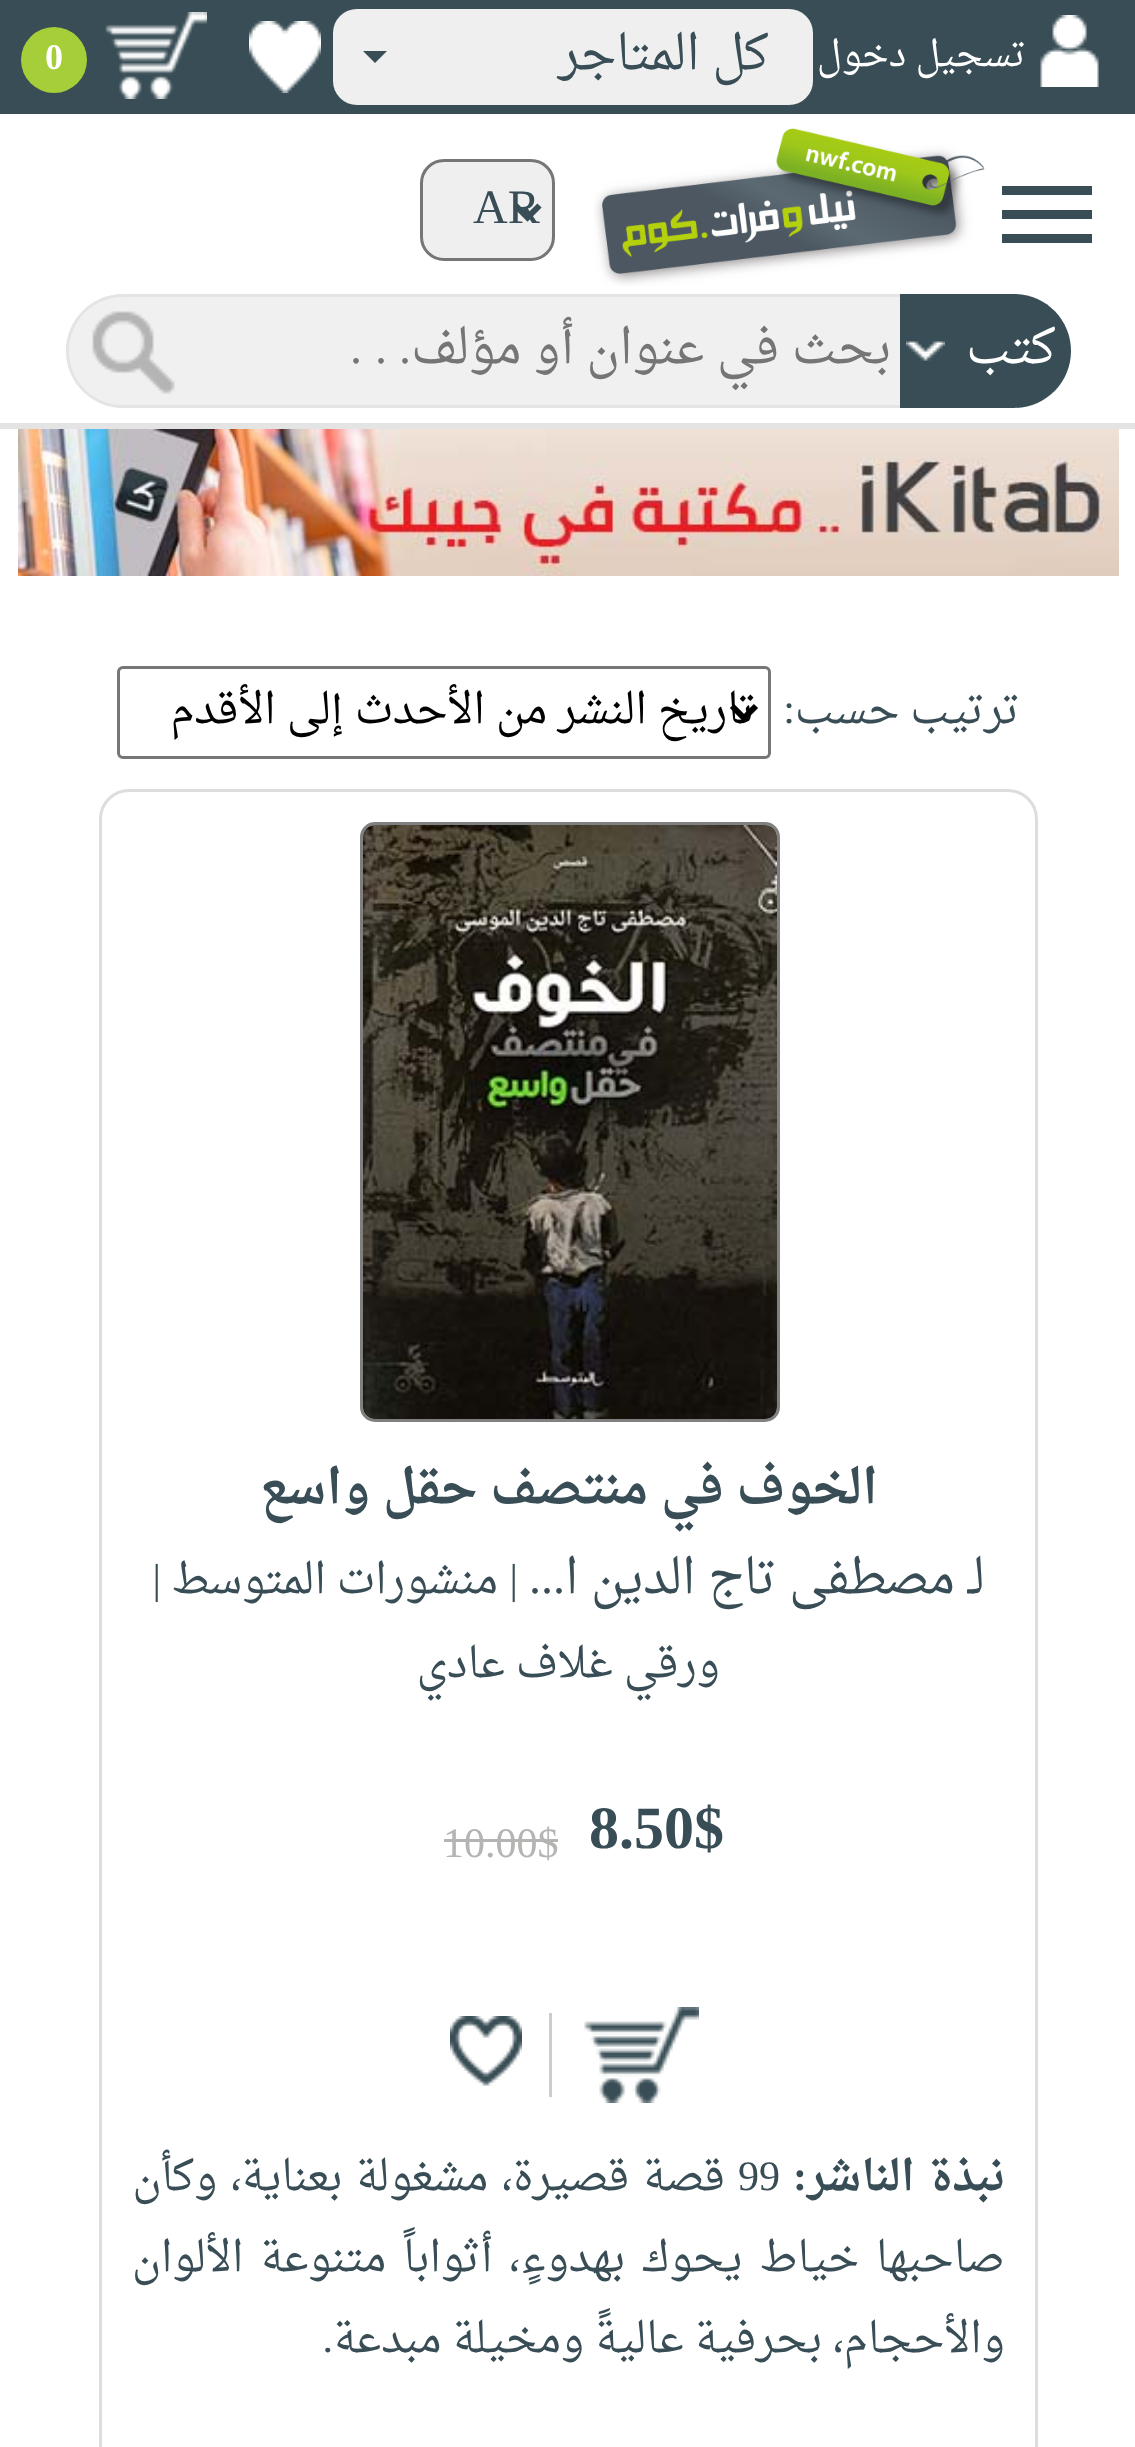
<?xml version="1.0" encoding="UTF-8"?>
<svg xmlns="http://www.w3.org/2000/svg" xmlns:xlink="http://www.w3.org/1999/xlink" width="1135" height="2447">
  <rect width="100%" height="100%" fill="#ffffff" />
  <rect width="1135" height="114" fill="#384d55" />
  <image x="1040" y="15" width="59" height="72" xlink:href="image1.png" />
  <rect x="333" y="9" width="480" height="96" rx="24" fill="#efefef" />
  <path d="M 363 51 h 24 l -12 12 z" fill="#384d55" />
  <image x="249" y="21" width="72" height="72" xlink:href="image2.png" />
  <image x="105" y="12" width="102" height="87" xlink:href="image3.png" />
  <circle cx="54" cy="60" r="33" fill="#a6ce39" />
  <rect y="423" width="1135" height="6" fill="#e4e4e4" />
  <rect x="1002" y="186" width="90" height="9" fill="#384d55" />
  <rect x="1002" y="210" width="90" height="9" fill="#384d55" />
  <rect x="1002" y="234" width="90" height="9" fill="#384d55" />
  <image x="594" y="128" width="391" height="158" xlink:href="image4.png" />
  <rect x="421.5" y="160.5" width="132" height="99" rx="22.5" fill="#efefef" stroke="#767676" stroke-width="3" />
  <path d="M 515.5 205.5 l 12 12 l 12 -12" fill="none" stroke="#384d55" stroke-width="6" />
  <path d="M 900 294 h 114 c 31.5 0 57 25.5 57 57 c 0 31.5 -25.5 57 -57 57 h -114 z" fill="#384d55" />
  <image x="906" y="341" width="39" height="20" xlink:href="image5.png" />
  <rect x="195" y="297" width="705" height="108" fill="#f0f0f0" />
  <rect x="195" y="294" width="705" height="3" fill="#e4e4e4" />
  <rect x="195" y="405" width="705" height="3" fill="#e4e4e4" />
  <path d="M 123 294 h 72 v 114 h -72 c -31.5 0 -57 -25.5 -57 -57 c 0 -31.5 25.5 -57 57 -57 z" fill="#f0f0f0" />
  <path d="M 123 294 h 72 v 114 h -72 c -31 0 -57 -26 -57 -57 c 0 -31 26 -57 57 -57 z m 0 3 h 72 v 108 h -72 c -30 0 -54 -24 -54 -54 c 0 -30 24 -54 54 -54 z" fill="#e4e4e4" fill-rule="evenodd" />
  <image x="92" y="311" width="83" height="83" xlink:href="image6.png" />
  <image x="18" y="429" width="1101" height="147" xlink:href="image7.png" />
  <rect x="118.5" y="667.5" width="651" height="90" rx="4.5" fill="none" stroke="#767676" stroke-width="3" />
  <path d="M 732 706 l 12 12 l 12 -12" fill="none" stroke="#000000" stroke-width="6" />
  <rect x="100.5" y="790.5" width="936" height="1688" rx="28.5" fill="none" stroke="#dddddd" stroke-width="3" />
  <rect x="361.5" y="823.5" width="417" height="597" rx="13.5" fill="none" stroke="#808080" stroke-width="3" />
  <image x="363" y="825" width="414" height="594" xlink:href="image8.png" />
  <rect x="444" y="1839" width="114" height="3" fill="#b4b5b3" />
  <image x="584" y="2007" width="115" height="96" xlink:href="image9.png" />
  <rect x="549" y="2013" width="3" height="84" fill="#cccccc" />
  <image x="450" y="2016" width="72" height="70" xlink:href="image10.png" />
  <text x="1026" y="66" style="font-family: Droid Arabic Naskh; font-size: 36px; direction: rtl; fill: #ffffff">تسجيل دخول</text>
  <text x="769" y="69" style="font-family: Droid Arabic Naskh; font-size: 48px; direction: rtl; fill: #384d55">كل المتاجر</text>
  <text x="45" y="69" style="font-family: Liberation Serif; font-size: 36px; font-weight: bold; fill: #ffffff">0</text>
  <text x="473" y="223" style="font-family: Liberation Serif; font-size: 48px; fill: #384d55">AR</text>
  <text x="1056" y="363" style="font-family: Droid Arabic Naskh; font-size: 48px; direction: rtl; fill: #ffffff">كتب</text>
  <text x="891" y="363" style="font-family: Droid Arabic Naskh; font-size: 48px; direction: rtl; fill: #757575">بحث في عنوان أو مؤلف</text>
  <text x="411" y="363" style="font-family: Liberation Serif; font-size: 48px; direction: rtl; fill: #757575">.</text>
  <text x="387" y="363" style="font-family: Liberation Serif; font-size: 48px; direction: rtl; fill: #757575">.</text>
  <text x="362" y="363" style="font-family: Liberation Serif; font-size: 48px; direction: rtl; fill: #757575">.</text>
  <text x="1020" y="723" style="font-family: Droid Arabic Naskh; font-size: 42px; direction: rtl; fill: #384d55">ترتيب حسب</text>
  <text x="795" y="723" style="font-family: Liberation Serif; font-size: 42px; direction: rtl; fill: #384d55">:</text>
  <text x="756" y="723" style="font-family: Droid Arabic Naskh; font-size: 42px; direction: rtl; fill: #000000">تاريخ النشر من الأحدث إلى الأقدم</text>
  <text x="878" y="1503" style="font-family: Droid Arabic Naskh; font-size: 48px; font-weight: bold; direction: rtl; fill: #384d55">الخوف في منتصف حقل واسع</text>
  <text x="985" y="1593" style="font-family: Droid Arabic Naskh; font-size: 48px; direction: rtl; fill: #384d55">لـ مصطفى تاج الدين ا</text>
  <text x="565" y="1593" style="font-family: Liberation Serif; font-size: 48px; direction: rtl; fill: #384d55">...</text>
  <text x="518" y="1593" style="font-family: Liberation Serif; font-size: 42px; direction: rtl; fill: #384d55">|</text>
  <text x="498" y="1593" style="font-family: Droid Arabic Naskh; font-size: 42px; direction: rtl; fill: #384d55">منشورات المتوسط</text>
  <text x="161" y="1593" style="font-family: Liberation Serif; font-size: 42px; direction: rtl; fill: #384d55">|</text>
  <text x="720" y="1677" style="font-family: Droid Arabic Naskh; font-size: 42px; direction: rtl; fill: #384d55">ورقي غلاف عادي</text>
  <text x="589" y="1848" style="font-family: Liberation Serif; font-size: 60px; font-weight: bold; fill: #384d55">8.50$</text>
  <text x="443" y="1857" style="font-family: Liberation Serif; font-size: 42px; fill: #b4b5b3">10.00$</text>
  <text x="1005" y="2190" word-spacing="2.5" style="font-family: Droid Arabic Naskh; font-size: 42px; font-weight: bold; direction: rtl; fill: #384d55">نبذة الناشر</text>
  <text x="807" y="2190" style="font-family: Liberation Serif; font-size: 42px; font-weight: bold; direction: rtl; fill: #384d55">:</text>
  <text x="738" y="2190" style="font-family: Liberation Serif; font-size: 42px; fill: #384d55">99</text>
  <text x="725" y="2190" word-spacing="2.5" style="font-family: Droid Arabic Naskh; font-size: 42px; direction: rtl; fill: #384d55">قصة قصيرة، مشغولة بعناية، وكأن</text>
  <text x="1005" y="2271" word-spacing="6" style="font-family: Droid Arabic Naskh; font-size: 42px; direction: rtl; fill: #384d55">صاحبها خياط يحوك بهدوءٍ، أثواباً متنوعة الألوان</text>
  <text x="1005" y="2352" style="font-family: Droid Arabic Naskh; font-size: 42px; direction: rtl; fill: #384d55">والأحجام، بحرفية عاليةً ومخيلة مبدعة</text>
  <text x="333" y="2352" style="font-family: Liberation Serif; font-size: 42px; direction: rtl; fill: #384d55">.</text>
</svg>
